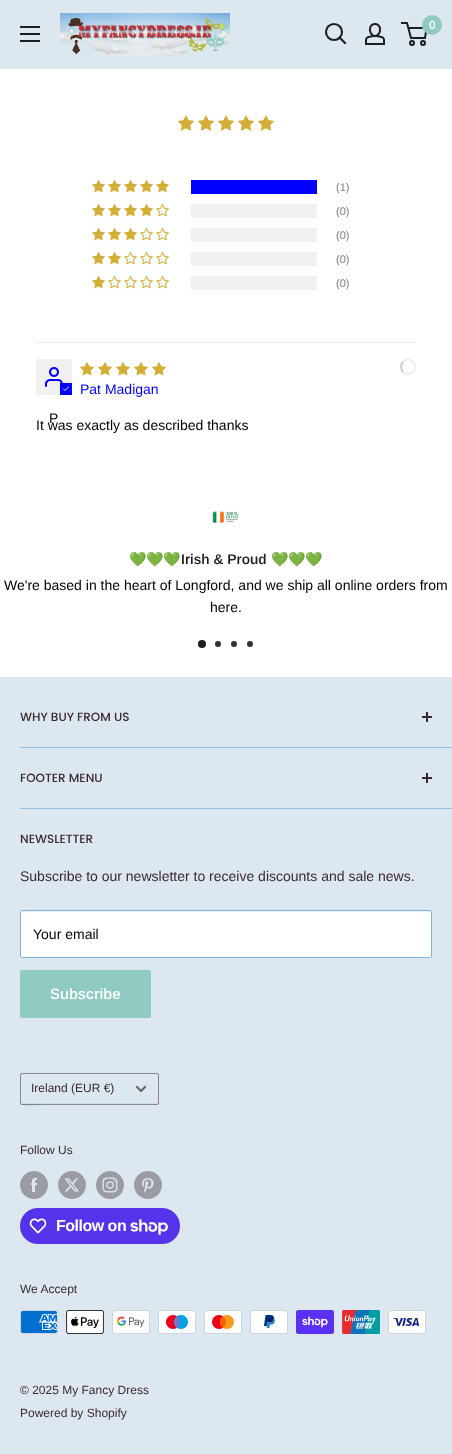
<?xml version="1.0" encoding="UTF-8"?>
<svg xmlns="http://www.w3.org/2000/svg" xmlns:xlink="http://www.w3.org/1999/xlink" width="452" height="1454">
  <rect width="100%" height="100%" fill="#ffffff" />
  <rect width="452" height="69" fill="#dde7f0" />
  <image x="60" y="13" width="170" height="43" xlink:href="image1.png" />
  <path d="M 345 43 l -5.5 -5.5" fill="none" stroke="#1e1e1e" stroke-width="2.1" stroke-linecap="square" />
  <circle cx="334" cy="32" r="8" fill="none" stroke="#1e1e1e" stroke-width="2.1" />
  <image x="365" y="23" width="20" height="22" xlink:href="image2.png" />
  <circle cx="412" cy="43" r="2" fill="none" stroke="#1e1e1e" stroke-width="2" />
  <circle cx="423" cy="43" r="2" fill="none" stroke="#1e1e1e" stroke-width="2" />
  <path d="M 408.5 28 h 18 l -1.5 10 h -14 l -4 -15 h -6" fill="none" stroke="#1e1e1e" stroke-width="2" />
  <circle cx="432" cy="25" r="10" fill="#90cbc1" />
  <image x="20" y="26" width="20" height="16" xlink:href="image3.png" />
  <image x="178" y="115" width="16" height="16" xlink:href="image4.png" />
  <image x="198" y="115" width="16" height="16" xlink:href="image4.png" />
  <image x="218" y="115" width="16" height="16" xlink:href="image4.png" />
  <image x="238" y="115" width="16" height="16" xlink:href="image4.png" />
  <image x="258" y="115" width="16" height="16" xlink:href="image4.png" />
  <image x="92" y="180" width="13" height="13" xlink:href="image5.png" />
  <image x="108" y="180" width="13" height="13" xlink:href="image5.png" />
  <image x="124" y="180" width="13" height="13" xlink:href="image5.png" />
  <image x="140" y="180" width="13" height="13" xlink:href="image5.png" />
  <image x="156" y="180" width="13" height="13" xlink:href="image5.png" />
  <rect x="191" y="180" width="126" height="14" fill="#0000ff" />
  <image x="92" y="204" width="13" height="13" xlink:href="image5.png" />
  <image x="108" y="204" width="13" height="13" xlink:href="image5.png" />
  <image x="124" y="204" width="13" height="13" xlink:href="image5.png" />
  <image x="140" y="204" width="13" height="13" xlink:href="image5.png" />
  <image x="156" y="204" width="13" height="13" xlink:href="image6.png" />
  <rect x="191" y="204" width="126" height="14" fill="#f0f0f0" />
  <image x="92" y="228" width="13" height="13" xlink:href="image5.png" />
  <image x="108" y="228" width="13" height="13" xlink:href="image5.png" />
  <image x="124" y="228" width="13" height="13" xlink:href="image5.png" />
  <image x="140" y="228" width="13" height="13" xlink:href="image6.png" />
  <image x="156" y="228" width="13" height="13" xlink:href="image6.png" />
  <rect x="191" y="228" width="126" height="14" fill="#f0f0f0" />
  <image x="92" y="252" width="13" height="13" xlink:href="image5.png" />
  <image x="108" y="252" width="13" height="13" xlink:href="image5.png" />
  <image x="124" y="252" width="13" height="13" xlink:href="image6.png" />
  <image x="140" y="252" width="13" height="13" xlink:href="image6.png" />
  <image x="156" y="252" width="13" height="13" xlink:href="image6.png" />
  <rect x="191" y="252" width="126" height="14" fill="#f0f0f0" />
  <image x="92" y="276" width="13" height="13" xlink:href="image5.png" />
  <image x="108" y="276" width="13" height="13" xlink:href="image6.png" />
  <image x="124" y="276" width="13" height="13" xlink:href="image6.png" />
  <image x="140" y="276" width="13" height="13" xlink:href="image6.png" />
  <image x="156" y="276" width="13" height="13" xlink:href="image6.png" />
  <rect x="191" y="276" width="126" height="14" fill="#f0f0f0" />
  <rect x="36" y="342" width="380" height="1" fill="#e6e6ff" />
  <image x="80" y="362" width="14" height="14" xlink:href="image7.png" />
  <image x="98" y="362" width="14" height="14" xlink:href="image7.png" />
  <image x="116" y="362" width="14" height="14" xlink:href="image7.png" />
  <image x="134" y="362" width="14" height="14" xlink:href="image7.png" />
  <image x="152" y="362" width="14" height="14" xlink:href="image7.png" />
  <path d="M 403 362 c 1.5 -1.5 4 -2.5 6.5 -2 c 8 2 7 14 -1.5 14 c -2 0 -3.5 -0.5 -5 -2" fill="none" stroke="#eeeeee" stroke-width="2" />
  <path d="M 403 372 c -2.5 -2.5 -2.5 -7.5 0 -10" fill="none" stroke="#cccccc" stroke-width="2" />
  <rect x="36" y="359" width="36" height="36" fill="#f0f0f0" />
  <image x="45" y="367" width="18" height="20" xlink:href="image8.png" />
  <rect x="60" y="383" width="12" height="12" fill="#0000ff" />
  <image x="63" y="386" width="6" height="5" xlink:href="image9.png" />
  <image x="212" y="510" width="26" height="14" xlink:href="image10.png" />
  <circle cx="202" cy="644" r="4" fill="#1e1e1e" />
  <circle cx="218" cy="644" r="3" fill="#333333" />
  <circle cx="234" cy="644" r="3" fill="#333333" />
  <circle cx="250" cy="644" r="3" fill="#333333" />
  <rect y="677" width="452" height="777" fill="#dde7f0" />
  <rect x="20" y="747" width="432" height="1" fill="#92c0e4" />
  <rect x="426" y="712" width="2" height="10" fill="#3a2a2f" />
  <rect x="422" y="716" width="10" height="2" fill="#3a2a2f" />
  <rect x="20" y="808" width="432" height="1" fill="#92c0e4" />
  <rect x="426" y="773" width="2" height="10" fill="#3a2a2f" />
  <rect x="422" y="777" width="10" height="2" fill="#3a2a2f" />
  <rect x="20" y="910" width="412" height="48" rx="2" fill="#ffffff" />
  <path d="M 22 912 h 408 h 1 v 1 v -1 l -1 -1 h -409 v 2 c 0 -1 0 -1 1 -1 z" fill="#e4eff8" />
  <rect x="20.5" y="910.5" width="411" height="47" rx="1.5" fill="none" stroke="#7eb4df" />
  <rect x="20" y="970" width="131" height="48" rx="2" fill="#90cbc1" />
  <path d="M 21 1102 c 0 8 23 2 23 2 h 114 v -2 c 0 1 0 1 -1 1 h -135 c -1 0 -1 0 -1 -1 z" fill="#c7dbec" />
  <rect x="20.5" y="1073.5" width="138" height="31" rx="1.5" fill="none" stroke="#3a2a2f" stroke-opacity="0.5" />
  <path d="M 145 1087 l -4 4 l -4 -4" fill="none" stroke="#6b6369" stroke-width="2" stroke-linecap="square" />
  <image x="20" y="1171" width="28" height="28" xlink:href="image11.png" />
  <image x="58" y="1171" width="28" height="28" xlink:href="image12.png" />
  <image x="96" y="1171" width="28" height="28" xlink:href="image13.png" />
  <image x="134" y="1171" width="28" height="28" xlink:href="image14.png" />
  <rect x="20" y="1208" width="160" height="36" rx="18" fill="#5433eb" />
  <image x="29" y="1218" width="18" height="16" xlink:href="image15.png" />
  <image x="130" y="1219" width="38" height="16" xlink:href="image16.png" />
  <image x="20" y="1310" width="38" height="24" xlink:href="image17.png" />
  <image x="66" y="1310" width="38" height="24" xlink:href="image18.png" />
  <image x="112" y="1310" width="38" height="24" xlink:href="image19.png" />
  <image x="158" y="1310" width="38" height="24" xlink:href="image20.png" />
  <image x="204" y="1310" width="38" height="24" xlink:href="image21.png" />
  <image x="250" y="1310" width="38" height="24" xlink:href="image22.png" />
  <image x="296" y="1310" width="38" height="24" xlink:href="image23.png" />
  <image x="342" y="1310" width="38" height="24" xlink:href="image24.png" />
  <image x="388" y="1310" width="38" height="24" xlink:href="image25.png" />
  <text x="429" y="29" style="font-family: Arimo; font-size: 12px; font-weight: 600; fill: #ffffff">0</text>
  <text x="336" y="191" style="font-family: Arimo; font-size: 11px; fill: #7b7b7b">(1)</text>
  <text x="336" y="215" style="font-family: Arimo; font-size: 11px; fill: #7b7b7b">(0)</text>
  <text x="336" y="239" style="font-family: Arimo; font-size: 11px; fill: #7b7b7b">(0)</text>
  <text x="336" y="263" style="font-family: Arimo; font-size: 11px; fill: #7b7b7b">(0)</text>
  <text x="336" y="287" style="font-family: Arimo; font-size: 11px; fill: #7b7b7b">(0)</text>
  <text x="80" y="394" style="font-family: Arimo; font-size: 14px; fill: #0000ff">Pat Madigan</text>
  <text x="49" y="423" style="font-family: Arimo; font-size: 14px; fill: #000000">P</text>
  <text x="36" y="430" style="font-family: Arimo; font-size: 14px; fill: #000000">It was exactly as described thanks</text>
  <text x="129" y="564" style="font-family: Noto Color Emoji; font-size: 14px; font-weight: bold; fill: #1e1e1e">💚💚💚</text>
  <text x="181" y="564" style="font-family: Arimo; font-size: 14px; font-weight: 600; fill: #1e1e1e">Irish &amp; Proud</text>
  <text x="271" y="564" style="font-family: Noto Color Emoji; font-size: 14px; font-weight: bold; fill: #1e1e1e">💚💚💚</text>
  <text x="4" y="590" style="font-family: Arimo; font-size: 14px; fill: #000000">We're based in the heart of Longford, and we ship all online orders from</text>
  <text x="210" y="612" style="font-family: Arimo; font-size: 14px; fill: #000000">here.</text>
  <text x="20" y="721" style="font-family: Poppins; font-size: 12px; font-weight: 500; fill: #3a2a2f">WHY BUY FROM US</text>
  <text x="20" y="782" style="font-family: Poppins; font-size: 12px; font-weight: 500; fill: #3a2a2f">FOOTER MENU</text>
  <text x="20" y="843" style="font-family: Poppins; font-size: 12px; font-weight: 500; fill: #3a2a2f">NEWSLETTER</text>
  <text x="20" y="881" style="font-family: Arimo; font-size: 14px; fill: #3a2a2f">Subscribe to our newsletter to receive discounts and sale news.</text>
  <text x="33" y="939" style="font-family: Arimo; font-size: 14px; fill: #000000">Your email</text>
  <text x="50" y="999" style="font-family: Arimo; font-size: 15px; font-weight: 600; fill: #ffffff">Subscribe</text>
  <text x="31" y="1092" style="font-family: Arimo; font-size: 12px; fill: #3a2a2f">Ireland (EUR €)</text>
  <text x="20" y="1154" style="font-family: Arimo; font-size: 12px; fill: #3a2a2f">Follow Us</text>
  <text x="56" y="1231" style="font-family: Liberation Sans; font-size: 16px; font-weight: bold; letter-spacing: -0.5px; fill: #ffffff">Follow on</text>
  <text x="20" y="1293" style="font-family: Arimo; font-size: 12px; fill: #3a2a2f">We Accept</text>
  <text x="20" y="1394" style="font-family: Arimo; font-size: 12px; fill: #3a2a2f">© 2025 My Fancy Dress</text>
  <text x="20" y="1417" style="font-family: Arimo; font-size: 12px; fill: #3a2a2f">Powered by Shopify</text>
</svg>
